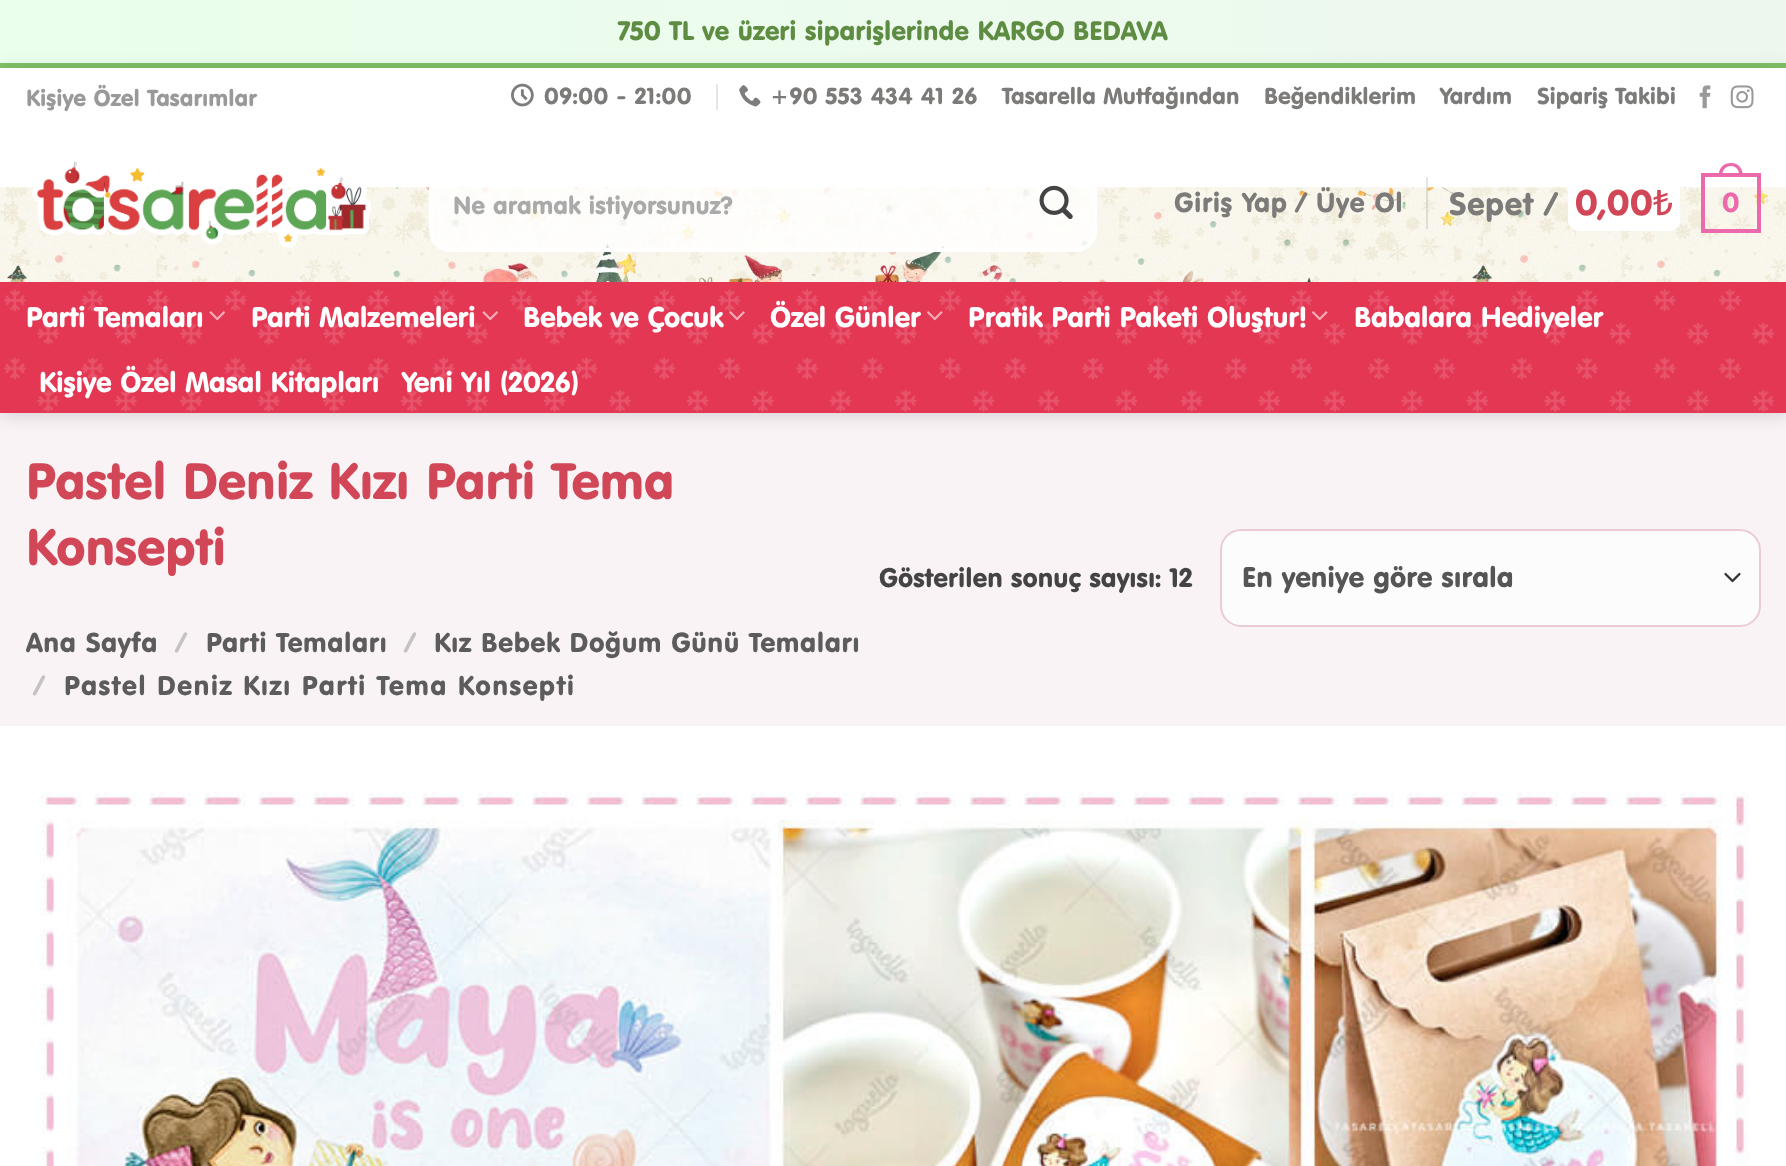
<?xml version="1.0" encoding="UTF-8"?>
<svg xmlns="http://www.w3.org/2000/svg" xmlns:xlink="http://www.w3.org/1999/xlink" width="1786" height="1166">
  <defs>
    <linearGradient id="g1" gradientUnits="userSpaceOnUse" x1="0" y1="32" x2="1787" y2="31"><stop offset="0" stop-color="#eaffec" /><stop offset="1" stop-color="#eef7ee" /></linearGradient>
  </defs>
  <rect width="100%" height="100%" fill="#ffffff" />
  <rect width="1786" height="63" fill="url(#g1)" />
  <rect y="63" width="1786" height="5" fill="#7fc367" />
  <rect y="413" width="1786" height="313" fill="#faf3f6" />
  <rect x="2" y="70" width="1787" height="345" fill="#000000" fill-opacity="0.15" filter="blur(9px)" />
  <rect y="68" width="1786" height="120" fill="#ffffff" />
  <image x="0" y="187" width="1786" height="95" xlink:href="image1.png" />
  <image x="511" y="83" width="23" height="24" xlink:href="image2.png" />
  <rect x="716" y="84" width="2" height="26" fill="#e6e6e6" />
  <image x="739" y="85" width="22" height="22" xlink:href="image3.png" />
  <image x="1699" y="85" width="12" height="24" xlink:href="image4.png" />
  <image x="1730" y="85" width="24" height="24" xlink:href="image5.png" />
  <image x="32" y="161" width="339" height="87" xlink:href="image6.png" />
  <rect x="431" y="156" width="664" height="94" rx="19" fill="#ffffff" fill-opacity="0.8" stroke="#ffffff" stroke-width="4" />
  <image x="1039" y="185" width="34" height="35" xlink:href="image7.png" />
  <rect x="1426" y="177" width="2" height="52" fill="#000000" fill-opacity="0.1" />
  <path d="M 1579 173 h 73 v 58 h -73 c -6 0 -11 -5 -11 -11 v -36 c 0 -6 5 -11 11 -11 z" fill="#ffffff" />
  <path d="M 1652 173 h 17 c 6 0 11 5 11 11 v 36 c 0 6 -5 11 -11 11 h -17 z" fill="#ffffff" />
  <rect x="1703" y="175" width="56" height="56" fill="none" stroke="#ec6aab" stroke-width="4" />
  <path d="M 1731 163 c 8 0 12 6 12 14 h -24.5 c 0 -8 4 -14 12.5 -14 z m 0 3 c 6 0 8.5 5 8.5 11 h -17.5 c 0 -6 2.5 -11 9 -11 z" fill="#ec6aab" fill-rule="evenodd" />
  <rect y="282" width="1786" height="131" fill="#e33753" />
  <image x="3" y="289" width="1772" height="123" xlink:href="image8.png" />
  <image x="209" y="311" width="16" height="10" xlink:href="image9.png" />
  <image x="482" y="311" width="16" height="10" xlink:href="image9.png" />
  <image x="729" y="311" width="16" height="10" xlink:href="image10.png" />
  <image x="927" y="311" width="16" height="10" xlink:href="image11.png" />
  <image x="1312" y="311" width="16" height="10" xlink:href="image11.png" />
  <rect x="1220" y="529" width="541" height="98" rx="21" fill="#fcfcfc" />
  <path d="M 1725.5 574 l 7 7 l 7 -7" fill="none" stroke="#333333" stroke-width="2.3" stroke-linecap="round" stroke-linejoin="round" />
  <rect x="1221" y="530" width="539" height="96" rx="20" fill="none" stroke="#eacad8" stroke-width="2" />
  <image x="40" y="792" width="1709" height="374" xlink:href="image12.png" />
  <text x="618" y="40" style="font-family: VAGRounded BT; font-size: 26.25px; fill: #5d8c42">750 TL ve üzeri siparişlerinde KARGO BEDAVA</text>
  <text x="26" y="106" style="font-family: VAGRounded BT; font-size: 22.75px; fill: #999999">Kişiye Özel Tasarımlar</text>
  <text x="544" y="104" style="font-family: VAGRounded BT; font-size: 22.75px; letter-spacing: 0.5px; fill: #7c7b7a">09:00 - 21:00</text>
  <text x="770" y="104" style="font-family: VAGRounded BT; font-size: 22.75px; letter-spacing: 0.5px; fill: #7c7b7a">+90 553 434 41 26</text>
  <text x="1002" y="104" style="font-family: VAGRounded BT; font-size: 22.75px; fill: #7c7b7a">Tasarella Mutfağından</text>
  <text x="1264" y="104" style="font-family: VAGRounded BT; font-size: 22.75px; fill: #7c7b7a">Beğendiklerim</text>
  <text x="1440" y="104" style="font-family: VAGRounded BT; font-size: 22.75px; fill: #7c7b7a">Yardım</text>
  <text x="1537" y="104" style="font-family: VAGRounded BT; font-size: 22.75px; fill: #7c7b7a">Sipariş Takibi</text>
  <text x="453" y="214" style="font-family: VAGRounded BT; font-size: 24.5px; fill: #aaaaaa">Ne aramak istiyorsunuz?</text>
  <text x="1174" y="212" style="font-family: VAGRounded BT; font-size: 26.9px; letter-spacing: 0.55px; fill: #7c7b7a">Giriş Yap</text>
  <text x="1296" y="212" style="font-family: VAGRounded BT; font-size: 26.9px; letter-spacing: 0.55px; fill: #7c7b7a">/ Üye Ol</text>
  <text x="1449" y="215" style="font-family: VAGRounded BT; font-size: 31.5px; letter-spacing: 0.55px; fill: #7c7b7a">Sepet</text>
  <text x="1545" y="215" style="font-family: VAGRounded BT; font-size: 31.5px; letter-spacing: 0.55px; fill: #7c7b7a">/</text>
  <text x="1575" y="215" style="font-family: VAGRounded BT; font-size: 35px; letter-spacing: 0.55px; fill: #d14757">0,00</text>
  <text x="1653" y="215" style="font-family: Noto Sans; font-size: 35px; font-weight: 500; letter-spacing: 0.55px; fill: #d14757">₺</text>
  <text x="1722" y="212" style="font-family: VAGRounded BT; font-size: 26.9px; letter-spacing: 0.55px; fill: #ec6aab">0</text>
  <text x="26" y="327" style="font-family: VAGRounded BT; font-size: 28px; letter-spacing: -0.25px; fill: #ffffff">Parti Temaları</text>
  <text x="251" y="327" style="font-family: VAGRounded BT; font-size: 28px; letter-spacing: -0.25px; fill: #ffffff">Parti Malzemeleri</text>
  <text x="523" y="327" style="font-family: VAGRounded BT; font-size: 28px; letter-spacing: -0.25px; fill: #ffffff">Bebek ve Çocuk</text>
  <text x="770" y="327" style="font-family: VAGRounded BT; font-size: 28px; letter-spacing: -0.25px; fill: #ffffff">Özel Günler</text>
  <text x="968" y="327" style="font-family: VAGRounded BT; font-size: 28px; letter-spacing: -0.25px; fill: #ffffff">Pratik Parti Paketi Oluştur!</text>
  <text x="1354" y="327" style="font-family: VAGRounded BT; font-size: 28px; letter-spacing: -0.25px; fill: #ffffff">Babalara Hediyeler</text>
  <text x="39" y="392" style="font-family: VAGRounded BT; font-size: 28px; letter-spacing: -0.25px; fill: #ffffff">Kişiye Özel Masal Kitapları</text>
  <text x="402" y="392" style="font-family: VAGRounded BT; font-size: 28px; letter-spacing: -0.25px; fill: #ffffff">Yeni Yıl (2026)</text>
  <text x="26" y="499" style="font-family: VAGRounded BT; font-size: 50.4px; fill: #d14757">Pastel Deniz Kızı Parti Tema</text>
  <text x="26" y="565" style="font-family: VAGRounded BT; font-size: 50.4px; fill: #d14757">Konsepti</text>
  <text x="26" y="652" style="font-family: VAGRounded BT; font-size: 26.9px; letter-spacing: 0.55px; fill: #5c5c5c">Ana Sayfa</text>
  <text x="176" y="652" style="font-family: VAGRounded BT; font-size: 26.9px; letter-spacing: 1.35px; fill: #c6c1c3">/</text>
  <text x="206" y="652" style="font-family: VAGRounded BT; font-size: 26.9px; letter-spacing: 0.55px; fill: #5c5c5c">Parti Temaları</text>
  <text x="405" y="652" style="font-family: VAGRounded BT; font-size: 26.9px; letter-spacing: 1.35px; fill: #c6c1c3">/</text>
  <text x="434" y="652" style="font-family: VAGRounded BT; font-size: 26.9px; letter-spacing: 0.55px; fill: #5c5c5c">Kız Bebek Doğum Günü Temaları</text>
  <text x="34" y="695" style="font-family: VAGRounded BT; font-size: 26.9px; letter-spacing: 1.35px; fill: #c6c1c3">/</text>
  <text x="64" y="695" style="font-family: VAGRounded BT; font-size: 26.9px; letter-spacing: 1.35px; fill: #5c5c5c">Pastel Deniz Kızı Parti Tema Konsepti</text>
  <text x="879" y="587" style="font-family: VAGRounded BT; font-size: 26.25px; fill: #444444">Gösterilen sonuç sayısı: 12</text>
  <text x="1242" y="587" style="font-family: VAGRounded BT; font-size: 28px; fill: #555555">En yeniye göre sırala</text>
</svg>
